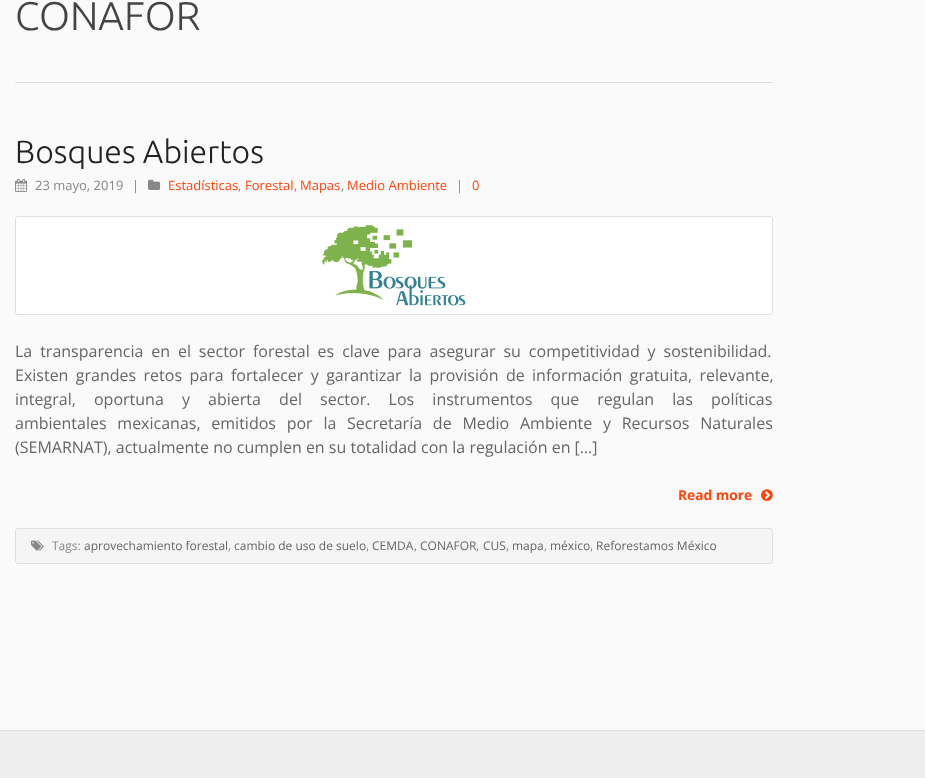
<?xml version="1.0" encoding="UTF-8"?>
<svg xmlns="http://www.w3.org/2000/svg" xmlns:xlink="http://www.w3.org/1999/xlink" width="925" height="778">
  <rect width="100%" height="100%" fill="#fafafa" />
  <rect x="15" y="82" width="758" height="1" fill="#e0e0e0" />
  <image x="15" y="178" width="13" height="14" xlink:href="image1.png" />
  <image x="148" y="179" width="13" height="11" xlink:href="image2.png" />
  <rect x="15.5" y="216.5" width="757" height="98" rx="2.5" fill="#ffffff" stroke="#e0e0e0" />
  <image x="322" y="225" width="144" height="81" xlink:href="image3.png" />
  <image x="761" y="489" width="12" height="12" xlink:href="image4.png" />
  <rect x="15.5" y="528.5" width="757" height="35" rx="2.5" fill="#f5f5f5" stroke="#e0e0e0" />
  <image x="31" y="540" width="13" height="11" xlink:href="image5.png" />
  <rect y="731" width="925" height="47" fill="#eeeeee" />
  <rect y="730" width="925" height="1" fill="#dddddd" />
  <text x="15" y="30" style="font-family: Ubuntu; font-size: 40px; font-weight: 300; fill: #444444">CONAFOR</text>
  <text x="15" y="163" style="font-family: Ubuntu; font-size: 32px; font-weight: 300; fill: #222222">Bosques Abiertos</text>
  <text x="35" y="190" style="font-family: Open Sans; font-size: 13px; fill: #888888">23 mayo, 2019</text>
  <text x="132" y="190" style="font-family: Open Sans; font-size: 13px; fill: #888888">|</text>
  <text x="168" y="190" style="font-family: Open Sans; font-size: 13px; fill: #ff450c">Estadísticas</text>
  <text x="238" y="190" style="font-family: Open Sans; font-size: 13px; fill: #888888">,</text>
  <text x="245" y="190" style="font-family: Open Sans; font-size: 13px; fill: #ff450c">Forestal</text>
  <text x="294" y="190" style="font-family: Open Sans; font-size: 13px; fill: #888888">,</text>
  <text x="300" y="190" style="font-family: Open Sans; font-size: 13px; fill: #ff450c">Mapas</text>
  <text x="341" y="190" style="font-family: Open Sans; font-size: 13px; fill: #888888">,</text>
  <text x="347" y="190" style="font-family: Open Sans; font-size: 13px; fill: #ff450c">Medio Ambiente</text>
  <text x="456" y="190" style="font-family: Open Sans; font-size: 13px; fill: #888888">|</text>
  <text x="472" y="190" style="font-family: Open Sans; font-size: 13px; fill: #ff450c">0</text>
  <text x="15" y="357" word-spacing="3.75" style="font-family: Open Sans; font-size: 16px; fill: #666666">La transparencia en el sector forestal es clave para asegurar su competitividad y sostenibilidad.</text>
  <text x="15" y="381" word-spacing="3.25" style="font-family: Open Sans; font-size: 16px; fill: #666666">Existen grandes retos para fortalecer y garantizar la provisión de información gratuita, relevante,</text>
  <text x="15" y="405" word-spacing="14" style="font-family: Open Sans; font-size: 16px; fill: #666666">integral, oportuna y abierta del sector. Los instrumentos que regulan las políticas</text>
  <text x="15" y="429" word-spacing="6.6" style="font-family: Open Sans; font-size: 16px; fill: #666666">ambientales mexicanas, emitidos por la Secretaría de Medio Ambiente y Recursos Naturales</text>
  <text x="15" y="453" style="font-family: Open Sans; font-size: 16px; fill: #666666">(SEMARNAT), actualmente no cumplen en su totalidad con la regulación en […]</text>
  <text x="678" y="500" style="font-family: Open Sans; font-size: 13.75px; font-weight: bold; fill: #ff450c">Read more</text>
  <text x="52" y="550" style="font-family: Open Sans; font-size: 12px; fill: #888888">Tags:</text>
  <text x="84" y="550" style="font-family: Open Sans; font-size: 12px; fill: #666666">aprovechamiento forestal</text>
  <text x="228" y="550" style="font-family: Open Sans; font-size: 12px; fill: #888888">,</text>
  <text x="234" y="550" style="font-family: Open Sans; font-size: 12px; fill: #666666">cambio de uso de suelo</text>
  <text x="366" y="550" style="font-family: Open Sans; font-size: 12px; fill: #888888">,</text>
  <text x="372" y="550" style="font-family: Open Sans; font-size: 12px; fill: #666666">CEMDA</text>
  <text x="414" y="550" style="font-family: Open Sans; font-size: 12px; fill: #888888">,</text>
  <text x="420" y="550" style="font-family: Open Sans; font-size: 12px; fill: #666666">CONAFOR</text>
  <text x="476" y="550" style="font-family: Open Sans; font-size: 12px; fill: #888888">,</text>
  <text x="483" y="550" style="font-family: Open Sans; font-size: 12px; fill: #666666">CUS</text>
  <text x="506" y="550" style="font-family: Open Sans; font-size: 12px; fill: #888888">,</text>
  <text x="512" y="550" style="font-family: Open Sans; font-size: 12px; fill: #666666">mapa</text>
  <text x="544" y="550" style="font-family: Open Sans; font-size: 12px; fill: #888888">,</text>
  <text x="550" y="550" style="font-family: Open Sans; font-size: 12px; fill: #666666">méxico</text>
  <text x="590" y="550" style="font-family: Open Sans; font-size: 12px; fill: #888888">,</text>
  <text x="596" y="550" style="font-family: Open Sans; font-size: 12px; fill: #666666">Reforestamos México</text>
</svg>
